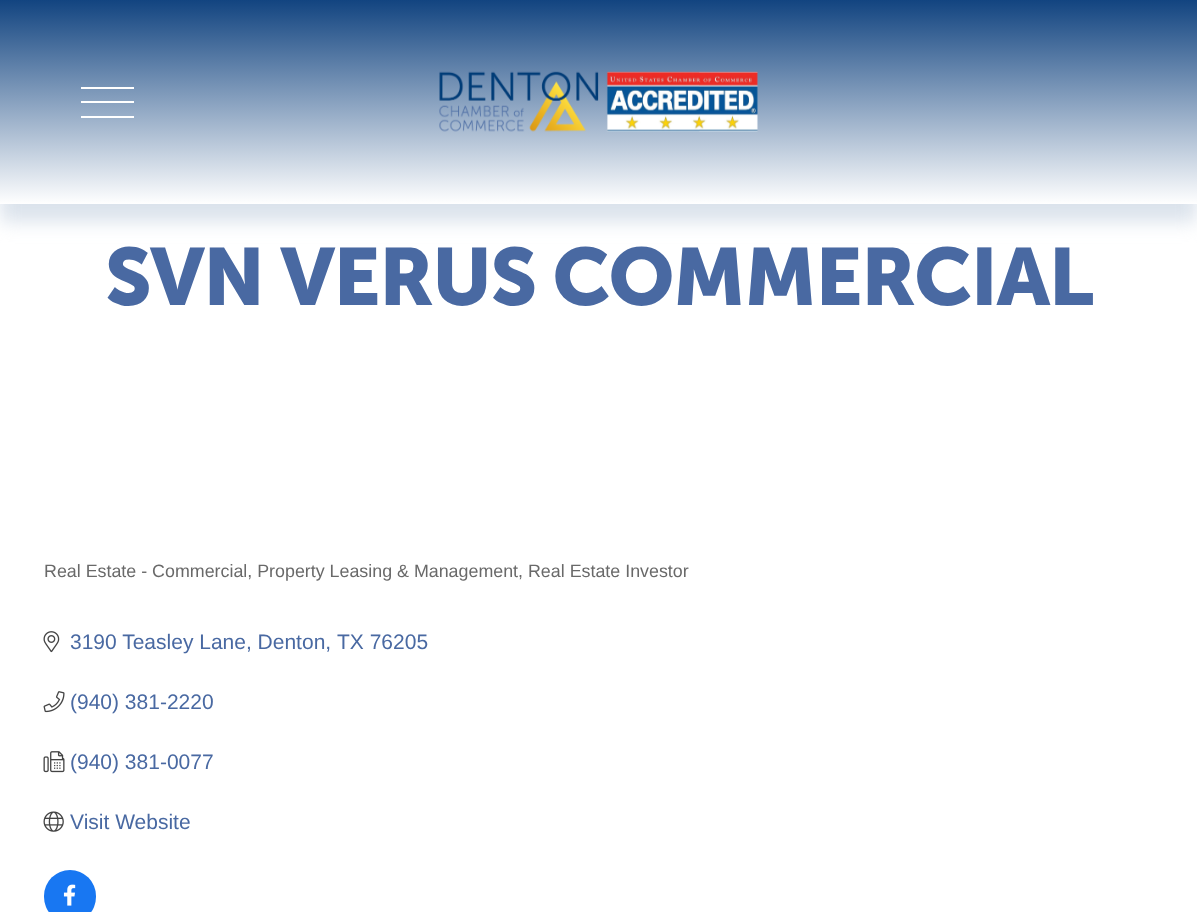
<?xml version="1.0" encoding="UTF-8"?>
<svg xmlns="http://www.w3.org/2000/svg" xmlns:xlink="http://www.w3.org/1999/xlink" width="1197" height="912">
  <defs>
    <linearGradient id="g1" gradientUnits="userSpaceOnUse" x1="599" y1="0" x2="599" y2="204"><stop offset="0" stop-color="#124480" /><stop offset="1" stop-color="#ffffff" /></linearGradient>
  </defs>
  <rect width="100%" height="100%" fill="#ffffff" />
  <rect y="18" width="1197" height="204" fill="#dbe3ec" filter="blur(9px)" />
  <rect width="1197" height="204" fill="url(#g1)" />
  <rect x="81" y="87" width="53" height="2" fill="#ffffff" />
  <rect x="81" y="101" width="53" height="2" fill="#ffffff" />
  <rect x="81" y="116" width="53" height="2" fill="#ffffff" />
  <image x="439" y="71" width="319" height="61" xlink:href="image1.png" />
  <image x="43" y="631" width="17" height="22" xlink:href="image2.png" />
  <image x="43" y="691" width="22" height="22" xlink:href="image3.png" />
  <image x="43" y="751" width="22" height="22" xlink:href="image4.png" />
  <image x="43" y="811" width="21" height="21" xlink:href="image5.png" />
  <rect x="44" y="870" width="52" height="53" rx="26" fill="#1877f2" />
  <image x="63" y="884" width="13" height="22" xlink:href="image6.png" />
  <text x="105" y="305" style="font-family: Museo Sans; font-size: 80.6px; font-weight: bold; letter-spacing: -1.6px; fill: #4969a2">SVN VERUS COMMERCIAL</text>
  <text x="44" y="577" style="font-family: Liberation Sans; font-size: 17.85px; fill: #696969">Real Estate - Commercial, Property Leasing &amp; Management, Real Estate Investor</text>
  <text x="70" y="649" style="font-family: Liberation Sans; font-size: 21px; fill: #4969a2">3190 Teasley Lane, Denton,</text>
  <text x="337" y="649" style="font-family: Liberation Sans; font-size: 21px; fill: #4969a2">TX 76205</text>
  <text x="70" y="709" style="font-family: Liberation Sans; font-size: 21px; fill: #4969a2">(940) 381-2220</text>
  <text x="70" y="769" style="font-family: Liberation Sans; font-size: 21px; fill: #4969a2">(940) 381-0077</text>
  <text x="70" y="829" style="font-family: Liberation Sans; font-size: 21px; fill: #4969a2">Visit Website</text>
</svg>
